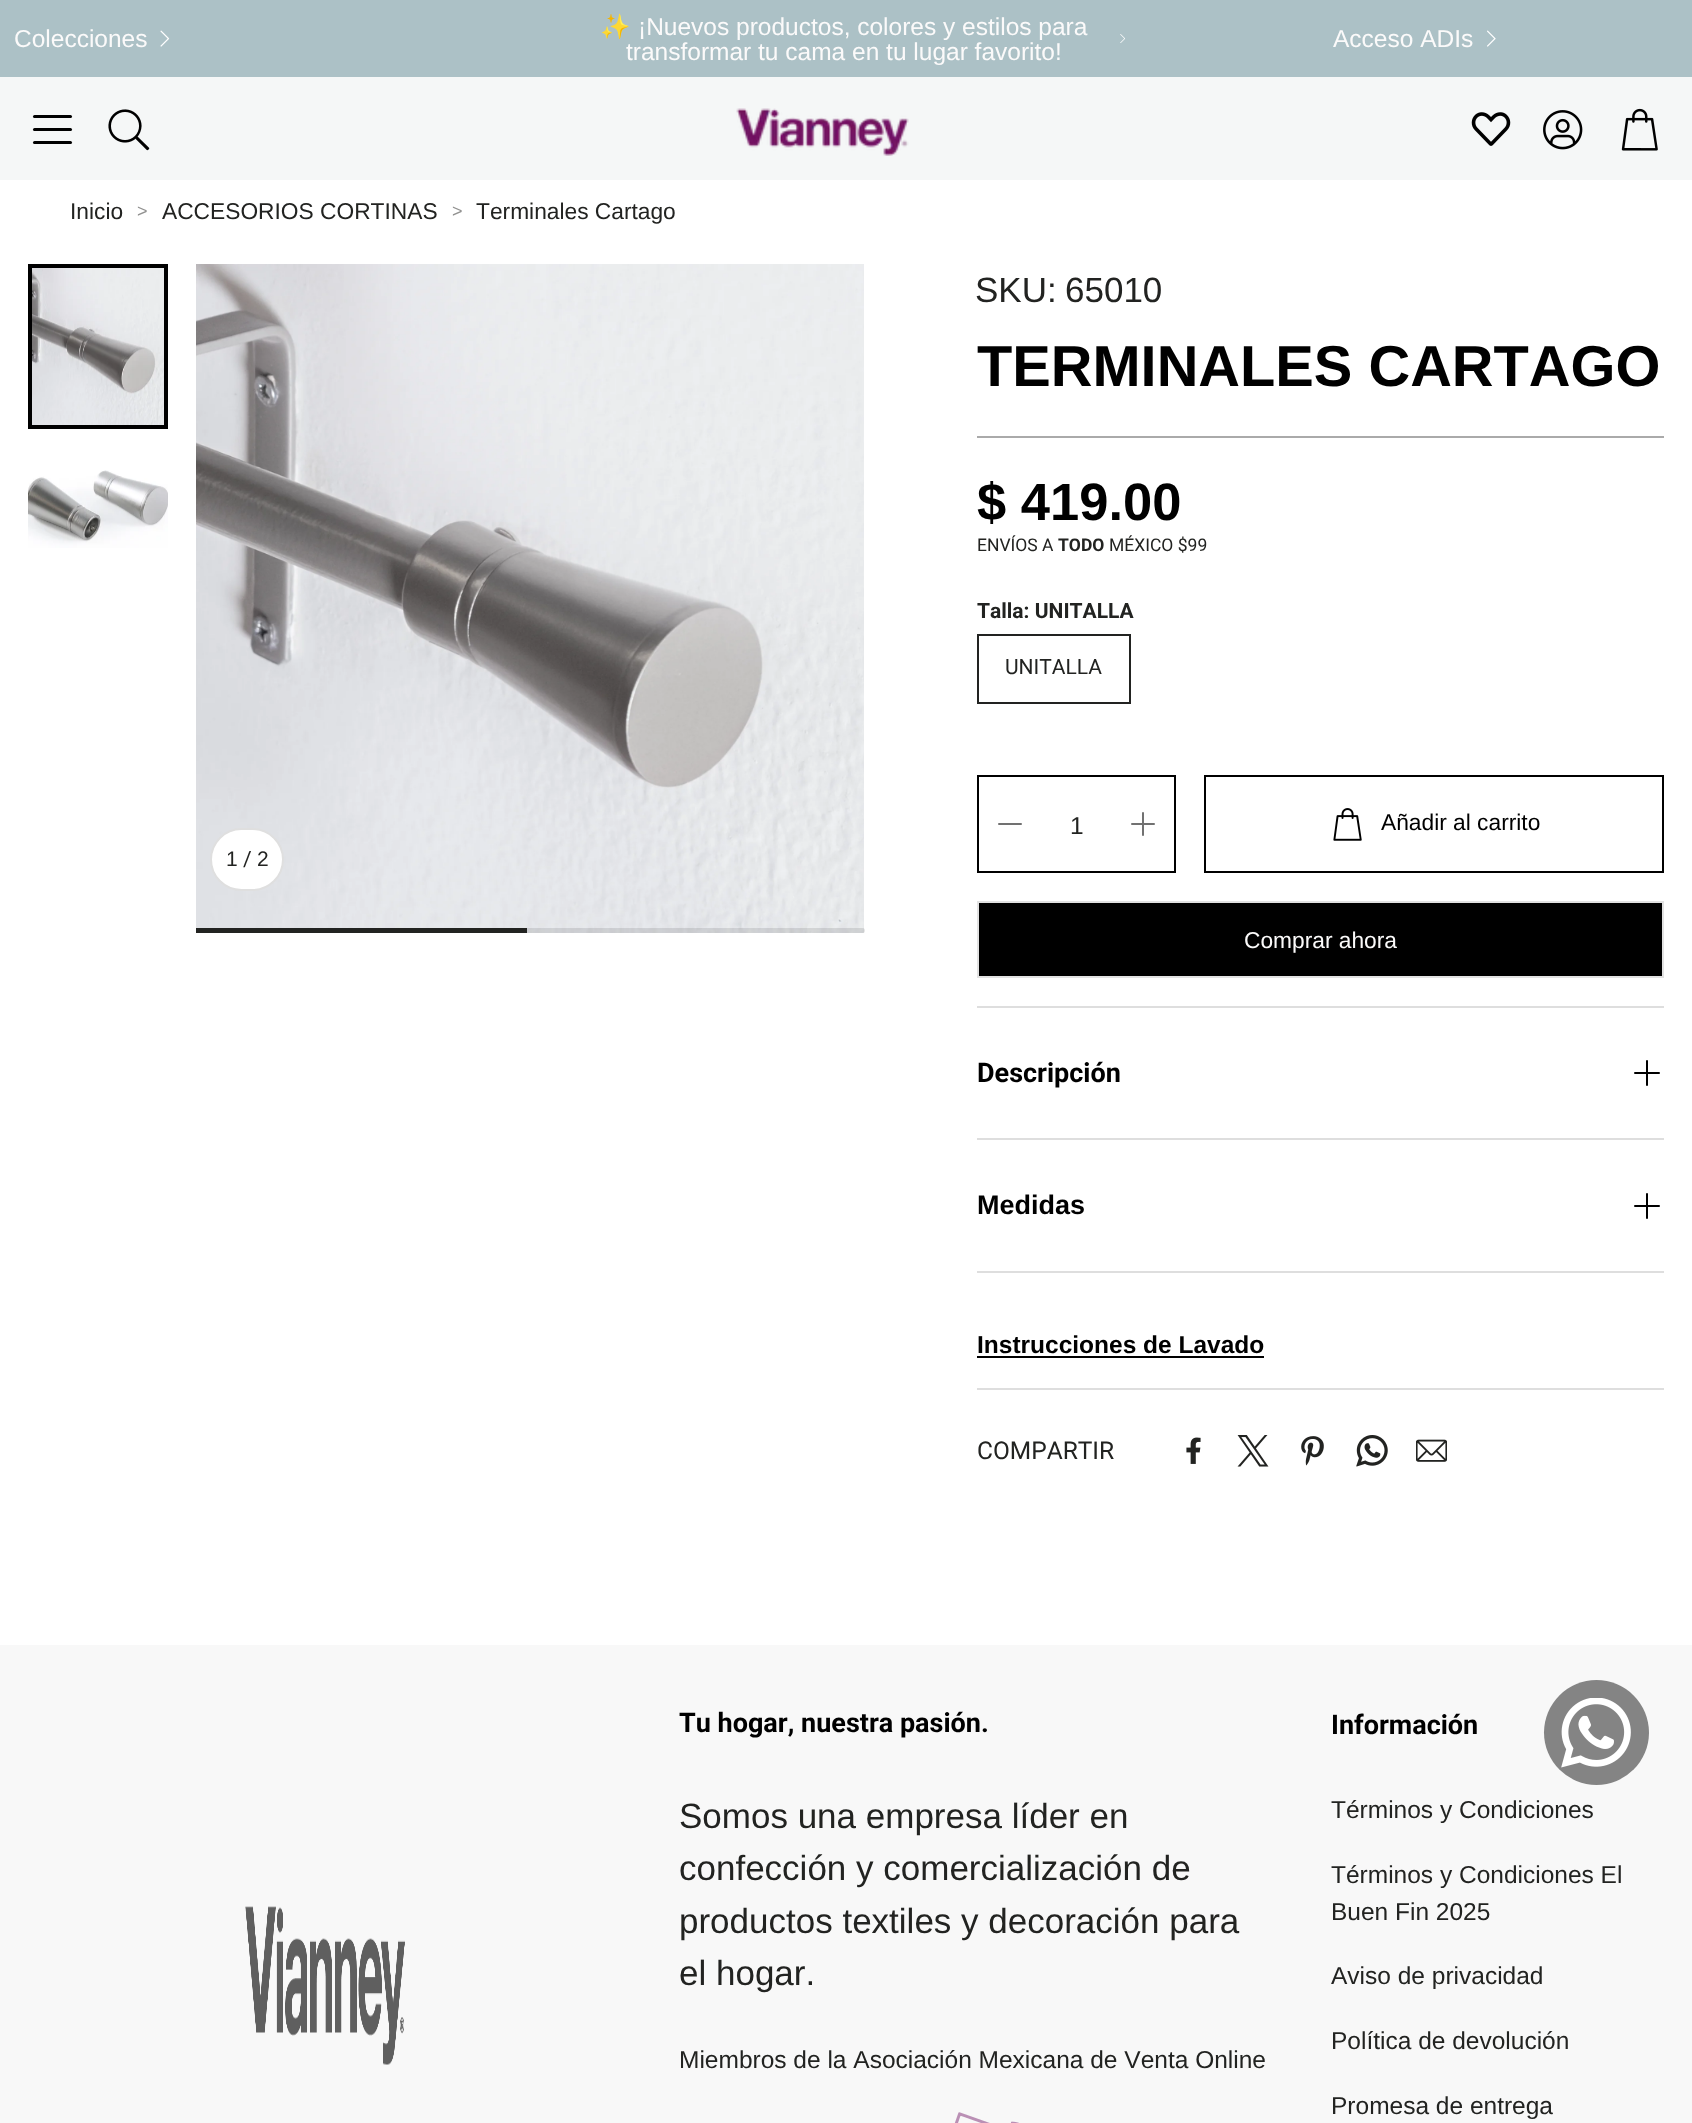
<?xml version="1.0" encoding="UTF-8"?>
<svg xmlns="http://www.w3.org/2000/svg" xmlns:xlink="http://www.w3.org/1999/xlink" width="1692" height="2123">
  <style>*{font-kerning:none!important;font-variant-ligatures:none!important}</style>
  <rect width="100%" height="100%" fill="#ffffff" />
  <rect width="1692" height="77" fill="#acc1c6" />
  <image x="160" y="30" width="10" height="17" xlink:href="image1.png" />
  <image x="1120" y="34" width="5" height="9" xlink:href="image2.png" />
  <image x="1487" y="30" width="9" height="17" xlink:href="image3.png" />
  <rect y="77" width="1692" height="103" fill="#f5f7f7" />
  <rect x="33" y="115" width="39" height="3" rx="1.5" fill="#000000" />
  <rect x="33" y="128" width="39" height="3" rx="1.5" fill="#000000" />
  <rect x="33" y="141" width="39" height="3" rx="1.5" fill="#000000" />
  <image x="108" y="109" width="42" height="42" xlink:href="image4.png" />
  <image x="736" y="108" width="173" height="48" xlink:href="image5.png" />
  <image x="1471" y="112" width="40" height="34" xlink:href="image6.png" />
  <image x="1543" y="110" width="40" height="40" xlink:href="image7.png" />
  <image x="1621" y="108" width="37" height="43" xlink:href="image8.png" />
  <image x="32" y="268" width="132" height="157" xlink:href="image9.png" />
  <rect x="30" y="266" width="136" height="161" fill="none" stroke="#000000" stroke-width="4" />
  <image x="28" y="470" width="140" height="78" xlink:href="image10.png" />
  <image x="196" y="264" width="668" height="669" xlink:href="image11.png" />
  <rect x="211" y="829" width="72" height="61" rx="30.5" fill="#ffffff" stroke="#dfdfdf" stroke-width="2" />
  <rect x="196" y="928" width="669" height="5" rx="2.5" fill="#000000" fill-opacity="0.1" />
  <rect x="196" y="928" width="331" height="5" fill="#222321" />
  <rect x="977" y="436" width="687" height="2" fill="#aaaaaa" />
  <rect x="978" y="635" width="152" height="68" fill="none" stroke="#222321" stroke-width="2" />
  <rect x="978" y="776" width="197" height="96" fill="none" stroke="#000000" stroke-width="2" />
  <rect x="998" y="823" width="24" height="2" rx="1" fill="#717171" />
  <rect x="1131" y="823" width="24" height="2" rx="1" fill="#717171" />
  <rect x="1142" y="812" width="2" height="24" rx="1" fill="#717171" />
  <rect x="1205" y="776" width="458" height="96" fill="none" stroke="#000000" stroke-width="2" />
  <image x="1333" y="808" width="29" height="33" xlink:href="image12.png" />
  <rect x="978" y="902" width="685" height="75" fill="#000000" stroke="#e2e2e2" stroke-width="2" />
  <rect x="977" y="1006" width="687" height="2" fill="#dedede" />
  <rect x="1634" y="1072" width="26" height="2" rx="1" fill="#000000" />
  <rect x="1646" y="1060" width="2" height="26" rx="1" fill="#000000" />
  <rect x="977" y="1138" width="687" height="2" fill="#dedede" />
  <rect x="1634" y="1205" width="26" height="2" rx="1" fill="#000000" />
  <rect x="1646" y="1193" width="2" height="26" rx="1" fill="#000000" />
  <rect x="977" y="1271" width="687" height="2" fill="#dedede" />
  <rect x="977" y="1356" width="287" height="2" fill="#000000" />
  <rect x="977" y="1388" width="687" height="2" fill="#dedede" />
  <image x="1186" y="1437" width="15" height="27" xlink:href="image13.png" />
  <image x="1237" y="1435" width="32" height="32" xlink:href="image14.png" />
  <image x="1301" y="1436" width="23" height="30" xlink:href="image15.png" />
  <image x="1356" y="1435" width="32" height="32" xlink:href="image16.png" />
  <image x="1416" y="1439" width="31" height="23" xlink:href="image17.png" />
  <rect y="1645" width="1692" height="478" fill="#f8f8f8" />
  <circle cx="1596.5" cy="1732.5" r="52.5" fill="#848484" />
  <image x="1561" y="1698" width="70" height="70" xlink:href="image18.png" />
  <image x="245" y="1906" width="160" height="159" xlink:href="image19.png" />
  <image x="954" y="2112" width="65" height="11" xlink:href="image20.png" />
  <text x="14" y="47" style="font-family: Liberation Sans; font-size: 24.5px; fill: #fbfafa">Colecciones</text>
  <text x="600" y="35" style="font-family: Noto Color Emoji; font-size: 24.5px; fill: #fbfafa">✨</text>
  <text x="638" y="35" style="font-family: Liberation Sans; font-size: 24.5px; fill: #fbfafa">¡Nuevos productos, colores y estilos para</text>
  <text x="626" y="60" style="font-family: Liberation Sans; font-size: 24.5px; fill: #fbfafa">transformar tu cama en tu lugar favorito!</text>
  <text x="1333" y="47" style="font-family: Liberation Sans; font-size: 24.5px; fill: #fbfafa">Acceso ADIs</text>
  <text x="70" y="219" style="font-family: Liberation Sans; font-size: 22.75px; fill: #222321">Inicio</text>
  <text x="137" y="217" style="font-family: Liberation Sans; font-size: 18px; fill: #919190">&gt;</text>
  <text x="162" y="219" style="font-family: Liberation Sans; font-size: 22.75px; fill: #222321">ACCESORIOS CORTINAS</text>
  <text x="452" y="217" style="font-family: Liberation Sans; font-size: 18px; fill: #919190">&gt;</text>
  <text x="476" y="219" style="font-family: Liberation Sans; font-size: 22.75px; fill: #222321">Terminales Cartago</text>
  <text x="226" y="866" style="font-family: Liberation Sans; font-size: 21px; fill: #222321">1</text>
  <text x="243" y="866" style="font-family: Roboto; font-size: 21px; fill: #222321">/</text>
  <text x="257" y="866" style="font-family: Liberation Sans; font-size: 21px; fill: #222321">2</text>
  <text x="975" y="302" style="font-family: Liberation Sans; font-size: 35px; fill: #222321">SKU:</text>
  <text x="1065" y="302" style="font-family: Liberation Sans; font-size: 35px; fill: #222321">65010</text>
  <text x="977" y="386" style="font-family: Liberation Sans; font-size: 57.75px; font-weight: bold; fill: #000000">TERMINALES CARTAGO</text>
  <text x="977" y="520" style="font-family: Liberation Sans; font-size: 52.5px; font-weight: bold; fill: #000000">$ 419.00</text>
  <text x="977" y="551" style="font-family: Roboto; font-size: 17.5px; fill: #222321">ENVÍOS A</text>
  <text x="1058" y="551" style="font-family: Roboto; font-size: 17.5px; font-weight: bold; fill: #222321">TODO</text>
  <text x="1109" y="551" style="font-family: Roboto; font-size: 17.5px; fill: #222321">MÉXICO $99</text>
  <text x="977" y="618" style="font-family: Roboto; font-size: 21px; font-weight: bold; fill: #222321">Talla: UNITALLA</text>
  <text x="1005" y="674" style="font-family: Roboto; font-size: 21px; fill: #222321">UNITALLA</text>
  <text x="1070" y="834" style="font-family: Liberation Sans; font-size: 24.5px; fill: #222321">1</text>
  <text x="1381" y="830" style="font-family: Liberation Sans; font-size: 22.75px; fill: #000000">Añadir al carrito</text>
  <text x="1244" y="948" style="font-family: Liberation Sans; font-size: 22.75px; fill: #fbfafa">Comprar ahora</text>
  <text x="977" y="1082" style="font-family: Roboto; font-size: 27px; font-weight: bold; fill: #000000">Descripción</text>
  <text x="977" y="1214" style="font-family: Liberation Sans; font-size: 27px; font-weight: bold; fill: #000000">Medidas</text>
  <text x="977" y="1353" style="font-family: Liberation Sans; font-size: 24.5px; font-weight: bold; fill: #000000">Instrucciones de Lavado</text>
  <text x="977" y="1459" style="font-family: Roboto; font-size: 24.5px; fill: #222321">COMPARTIR</text>
  <text x="679" y="1732" style="font-family: Roboto; font-size: 27px; font-weight: bold; fill: #000000">Tu hogar, nuestra pasión.</text>
  <text x="679" y="1828" style="font-family: Liberation Sans; font-size: 35px; fill: #222321">Somos una empresa líder en</text>
  <text x="679" y="1880" style="font-family: Liberation Sans; font-size: 35px; fill: #222321">confección y comercialización de</text>
  <text x="679" y="1933" style="font-family: Liberation Sans; font-size: 35px; fill: #222321">productos textiles y decoración para</text>
  <text x="679" y="1985" style="font-family: Liberation Sans; font-size: 35px; fill: #222321">el hogar.</text>
  <text x="679" y="2068" style="font-family: Liberation Sans; font-size: 24.5px; fill: #222321">Miembros de la Asociación Mexicana de Venta Online</text>
  <text x="1331" y="1734" style="font-family: Roboto; font-size: 27px; font-weight: bold; fill: #000000">Información</text>
  <text x="1331" y="1818" style="font-family: Liberation Sans; font-size: 24.5px; fill: #222321">Términos y Condiciones</text>
  <text x="1331" y="1883" style="font-family: Liberation Sans; font-size: 24.5px; fill: #222321">Términos y Condiciones El</text>
  <text x="1331" y="1920" style="font-family: Liberation Sans; font-size: 24.5px; fill: #222321">Buen Fin 2025</text>
  <text x="1331" y="1984" style="font-family: Liberation Sans; font-size: 24.5px; fill: #222321">Aviso de privacidad</text>
  <text x="1331" y="2049" style="font-family: Liberation Sans; font-size: 24.5px; fill: #222321">Política de devolución</text>
  <text x="1331" y="2114" style="font-family: Liberation Sans; font-size: 24.5px; fill: #222321">Promesa de entrega</text>
</svg>
